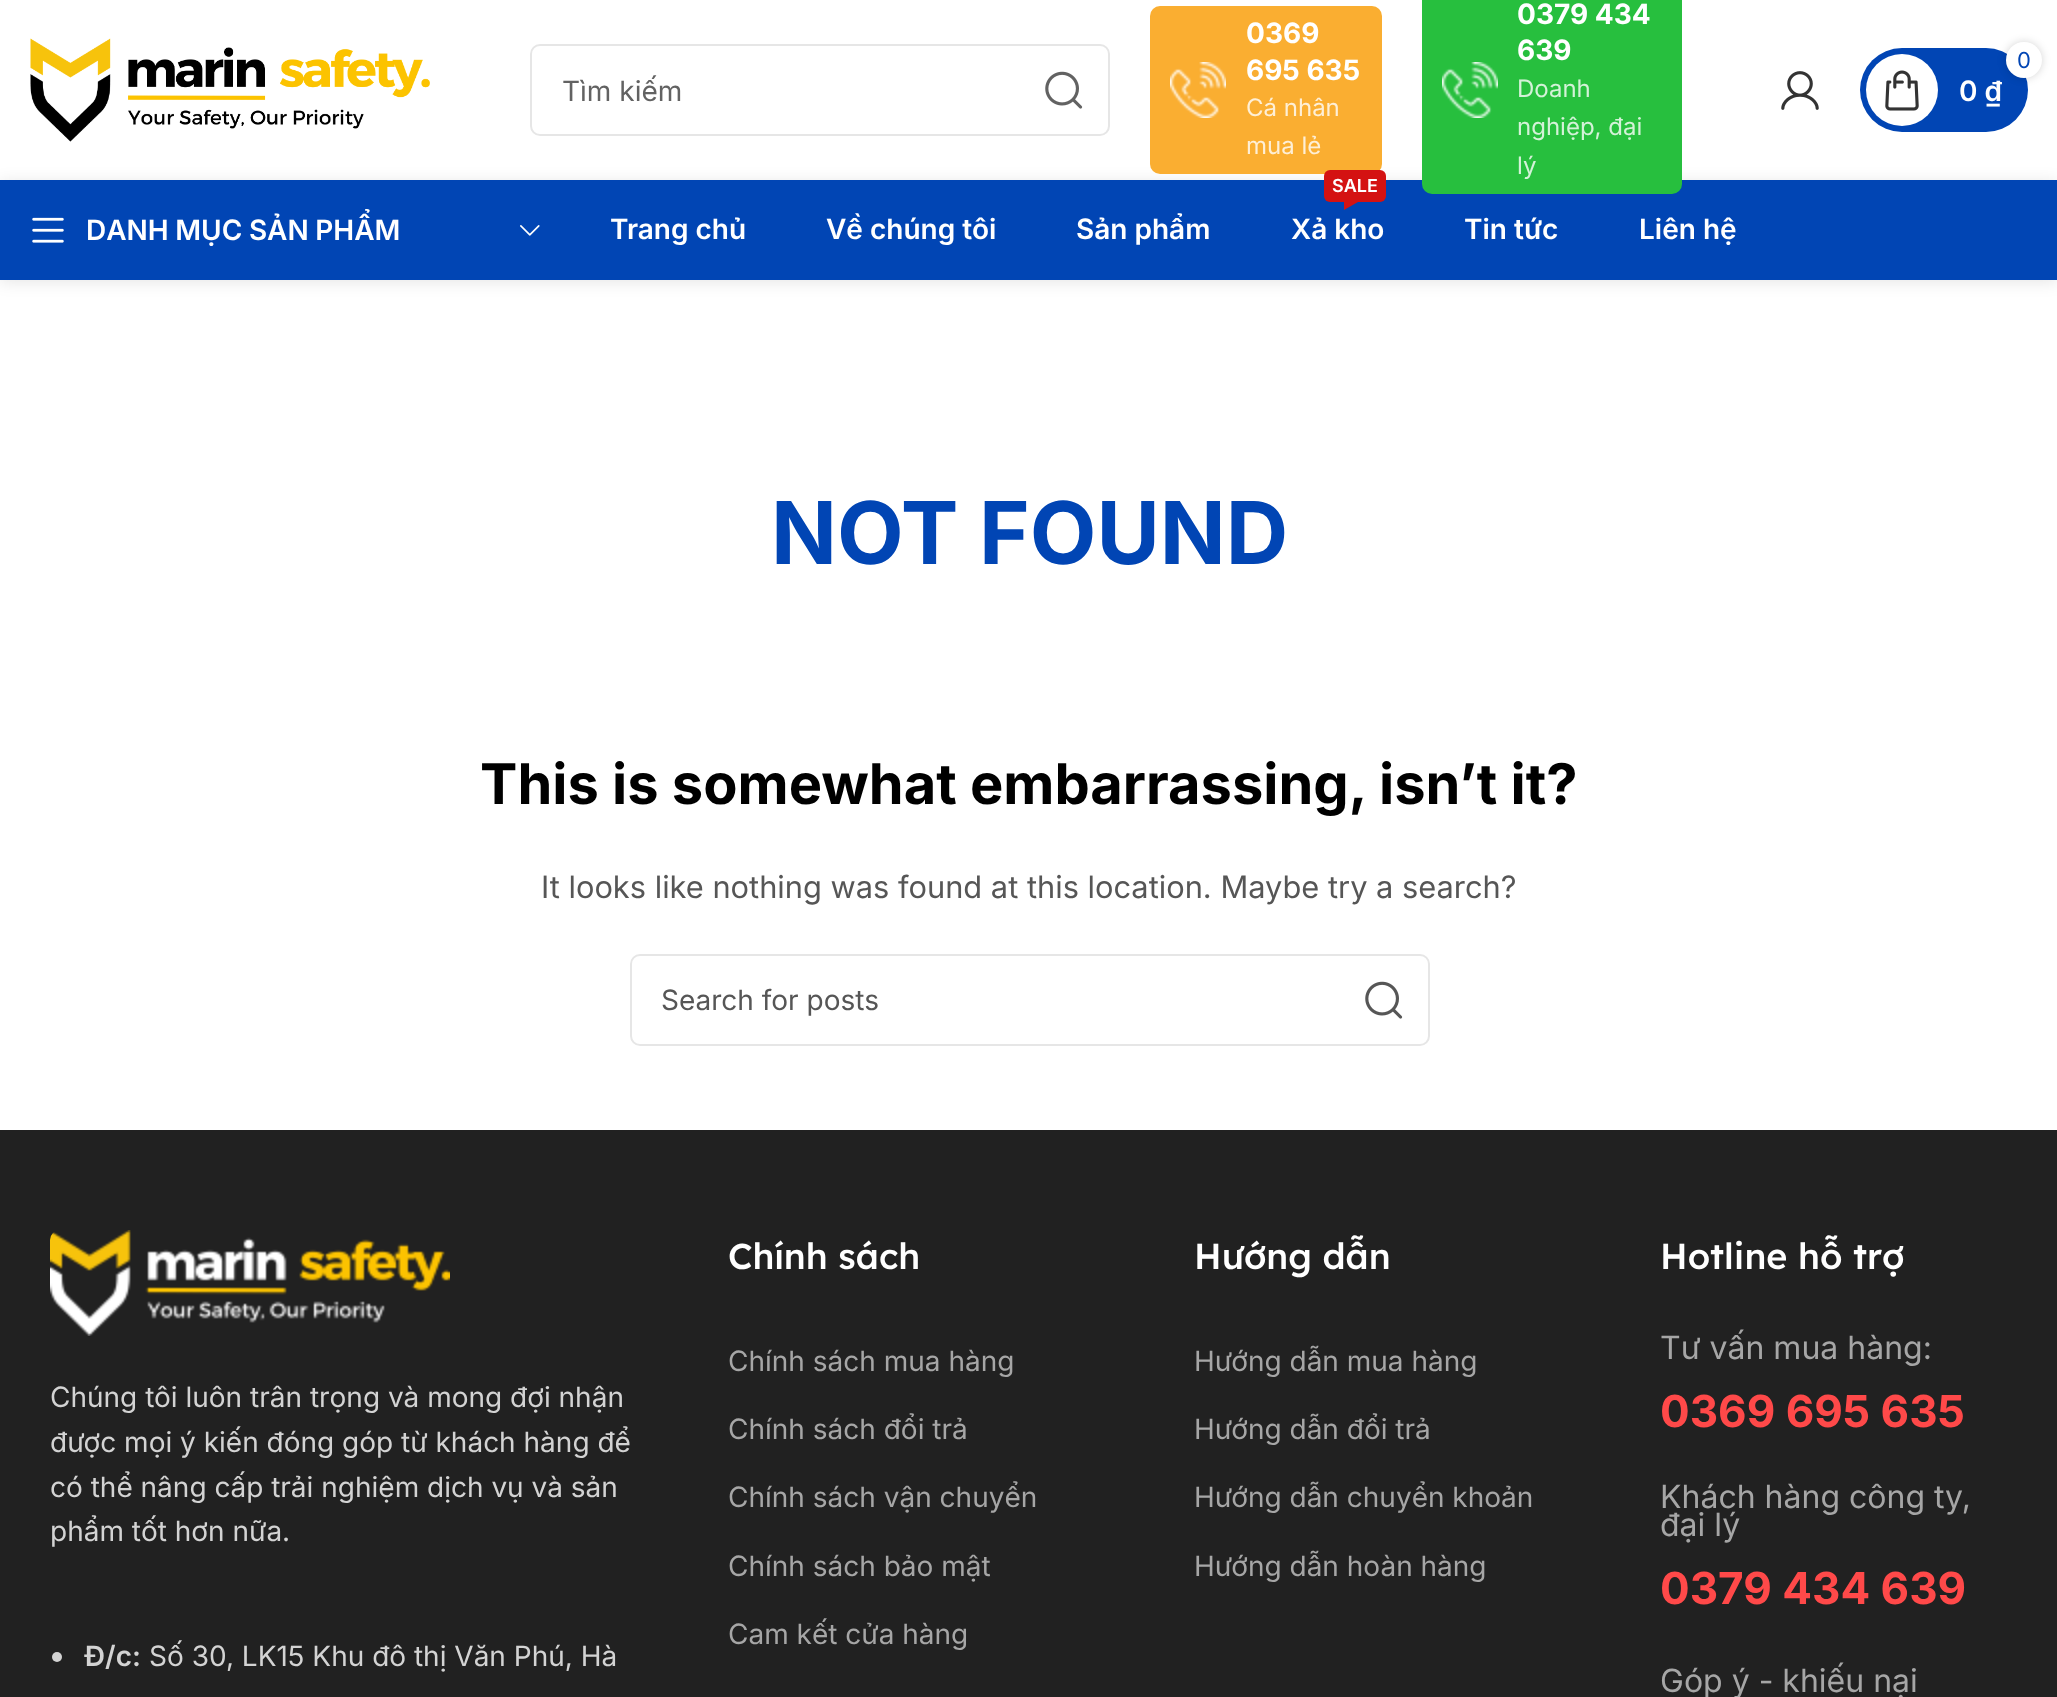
<?xml version="1.0" encoding="UTF-8"?>
<svg xmlns="http://www.w3.org/2000/svg" xmlns:xlink="http://www.w3.org/1999/xlink" width="2057" height="1697">
  <rect width="100%" height="100%" fill="#ffffff" />
  <image x="30" y="38" width="400" height="104" xlink:href="image1.png" />
  <rect x="531" y="45" width="578" height="90" rx="9" fill="none" stroke="#e6e6e6" stroke-width="2" />
  <image x="1045" y="71" width="38" height="38" xlink:href="image2.png" />
  <rect y="182" width="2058" height="100" fill="#000000" fill-opacity="0.1" filter="blur(8px)" />
  <rect x="1150" y="6" width="232" height="168" rx="10" fill="#faae31" />
  <image x="1170" y="62" width="56" height="56" xlink:href="image3.png" />
  <rect y="180" width="2057" height="100" fill="#0145b4" />
  <rect x="1422" y="-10" width="260" height="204" rx="10" fill="#27bf3e" />
  <image x="1442" y="62" width="56" height="56" xlink:href="image4.png" />
  <image x="1781" y="71" width="38" height="39" xlink:href="image5.png" />
  <rect x="1860" y="48" width="168" height="84" rx="42" fill="#0145b4" />
  <circle cx="1902" cy="90" r="36" fill="#ffffff" />
  <rect x="2006" y="42" width="36" height="36" rx="18" fill="#000000" fill-opacity="0.17" filter="blur(4px)" />
  <circle cx="2024" cy="60" r="18" fill="#ffffff" />
  <image x="1885" y="70" width="34" height="41" xlink:href="image6.png" />
  <image x="32" y="217" width="32" height="26" xlink:href="image7.png" />
  <image x="520" y="225" width="20" height="11" xlink:href="image8.png" />
  <rect x="1324" y="170" width="62" height="32" rx="6" fill="#d41212" />
  <path d="M 1344 202 h 14 l -14 8 z" fill="#d41212" />
  <rect x="631" y="955" width="798" height="90" rx="9" fill="none" stroke="#e6e6e6" stroke-width="2" />
  <image x="1365" y="981" width="38" height="38" xlink:href="image9.png" />
  <rect y="1130" width="2057" height="567" fill="#212121" />
  <image x="50" y="1230" width="400" height="106" xlink:href="image10.png" />
  <circle cx="57" cy="1657" r="5" fill="#d3d3d3" />
  <text x="562" y="101" style="font-family: Inter; font-size: 28px; fill: #626262">Tìm kiếm</text>
  <text x="1246" y="43" style="font-family: Inter; font-size: 28px; font-weight: bold; fill: #ffffff">0369</text>
  <text x="1246" y="80" style="font-family: Inter; font-size: 28px; font-weight: bold; fill: #ffffff">695 635</text>
  <text x="1246" y="116" style="font-family: Inter; font-size: 24px; fill: #feefd6">Cá nhân</text>
  <text x="1246" y="154" style="font-family: Inter; font-size: 24px; fill: #feefd6">mua lẻ</text>
  <text x="1517" y="24" style="font-family: Inter; font-size: 28px; font-weight: bold; fill: #ffffff">0379 434</text>
  <text x="1517" y="60" style="font-family: Inter; font-size: 28px; font-weight: bold; fill: #ffffff">639</text>
  <text x="1517" y="97" style="font-family: Inter; font-size: 24px; fill: #d4f2d8">Doanh</text>
  <text x="1517" y="135" style="font-family: Inter; font-size: 24px; fill: #d4f2d8">nghiệp, đại</text>
  <text x="1517" y="174" style="font-family: Inter; font-size: 24px; fill: #d4f2d8">lý</text>
  <text x="2017" y="68" style="font-family: Inter; font-size: 22px; fill: #0145b4">0</text>
  <text x="1959" y="101" style="font-family: Inter; font-size: 28px; font-weight: 600; fill: #ffffff">0 ₫</text>
  <text x="86" y="240" word-spacing="-0.5" style="font-family: Inter; font-size: 28px; font-weight: 600; fill: #ffffff">DANH MỤC SẢN PHẨM</text>
  <text x="610" y="239" style="font-family: Inter; font-size: 28px; font-weight: 600; fill: #ffffff">Trang chủ</text>
  <text x="826" y="239" style="font-family: Inter; font-size: 28px; font-weight: 600; fill: #ffffff">Về chúng tôi</text>
  <text x="1076" y="239" style="font-family: Inter; font-size: 28px; font-weight: 600; fill: #ffffff">Sản phẩm</text>
  <text x="1332" y="192" style="font-family: Inter; font-size: 18px; font-weight: 600; fill: #ffffff">SALE</text>
  <text x="1291" y="239" style="font-family: Inter; font-size: 28px; font-weight: 600; fill: #ffffff">Xả kho</text>
  <text x="1464" y="239" style="font-family: Inter; font-size: 28px; font-weight: 600; fill: #ffffff">Tin tức</text>
  <text x="1639" y="239" style="font-family: Inter; font-size: 28px; font-weight: 600; fill: #ffffff">Liên hệ</text>
  <text x="771" y="564" style="font-family: Inter; font-size: 86.5px; font-weight: bold; fill: #0145b4">NOT FOUND</text>
  <text x="480" y="804" style="font-family: Inter; font-size: 56px; font-weight: bold; fill: #000000">This is somewhat embarrassing, isn’t it?</text>
  <text x="541" y="898" style="font-family: Inter; font-size: 30.8px; fill: #565656">It looks like nothing was found at this location. Maybe try a search?</text>
  <text x="661" y="1010" style="font-family: Inter; font-size: 28px; fill: #565656">Search for posts</text>
  <text x="50" y="1407" style="font-family: Inter; font-size: 28px; fill: #d3d3d3">Chúng tôi luôn trân trọng và mong đợi nhận</text>
  <text x="50" y="1452" style="font-family: Inter; font-size: 28px; fill: #d3d3d3">được mọi ý kiến đóng góp từ khách hàng để</text>
  <text x="50" y="1497" style="font-family: Inter; font-size: 28px; fill: #d3d3d3">có thể nâng cấp trải nghiệm dịch vụ và sản</text>
  <text x="50" y="1541" style="font-family: Inter; font-size: 28px; fill: #d3d3d3">phẩm tốt hơn nữa.</text>
  <text x="84" y="1666" style="font-family: Inter; font-size: 28px; font-weight: 600; fill: #d3d3d3">Đ/c:</text>
  <text x="149" y="1666" style="font-family: Inter; font-size: 28px; fill: #d3d3d3">Số 30, LK15 Khu đô thị Văn Phú, Hà</text>
  <text x="728" y="1269" style="font-family: Lexend Deca; font-size: 36px; font-weight: 500; fill: #ffffff">Chính sách</text>
  <text x="728" y="1371" style="font-family: Inter; font-size: 28px; fill: #a6a6a6">Chính sách mua hàng</text>
  <text x="728" y="1439" style="font-family: Inter; font-size: 28px; fill: #a6a6a6">Chính sách đổi trả</text>
  <text x="728" y="1507" style="font-family: Inter; font-size: 28px; fill: #a6a6a6">Chính sách vận chuyển</text>
  <text x="728" y="1576" style="font-family: Inter; font-size: 28px; fill: #a6a6a6">Chính sách bảo mật</text>
  <text x="728" y="1644" style="font-family: Inter; font-size: 28px; fill: #a6a6a6">Cam kết cửa hàng</text>
  <text x="1194" y="1269" style="font-family: Lexend Deca; font-size: 36px; font-weight: 500; fill: #ffffff">Hướng dẫn</text>
  <text x="1194" y="1371" style="font-family: Inter; font-size: 28px; fill: #a6a6a6">Hướng dẫn mua hàng</text>
  <text x="1194" y="1439" style="font-family: Inter; font-size: 28px; fill: #a6a6a6">Hướng dẫn đổi trả</text>
  <text x="1194" y="1507" style="font-family: Inter; font-size: 28px; fill: #a6a6a6">Hướng dẫn chuyển khoản</text>
  <text x="1194" y="1576" style="font-family: Inter; font-size: 28px; fill: #a6a6a6">Hướng dẫn hoàn hàng</text>
  <text x="1660" y="1269" style="font-family: Lexend Deca; font-size: 36px; font-weight: 500; fill: #ffffff">Hotline hỗ trợ</text>
  <text x="1660" y="1359" style="font-family: Inter; font-size: 32px; fill: #a6a6a6">Tư vấn mua hàng:</text>
  <text x="1660" y="1427" style="font-family: Inter; font-size: 44px; font-weight: bold; fill: #ff4949">0369 695 635</text>
  <text x="1660" y="1508" style="font-family: Inter; font-size: 32px; fill: #a6a6a6">Khách hàng công ty,</text>
  <text x="1660" y="1536" style="font-family: Inter; font-size: 32px; fill: #a6a6a6">đại lý</text>
  <text x="1660" y="1604" style="font-family: Inter; font-size: 44px; font-weight: bold; fill: #ff4949">0379 434 639</text>
  <text x="1660" y="1692" style="font-family: Inter; font-size: 32px; fill: #a6a6a6">Góp ý - khiếu nại</text>
</svg>
